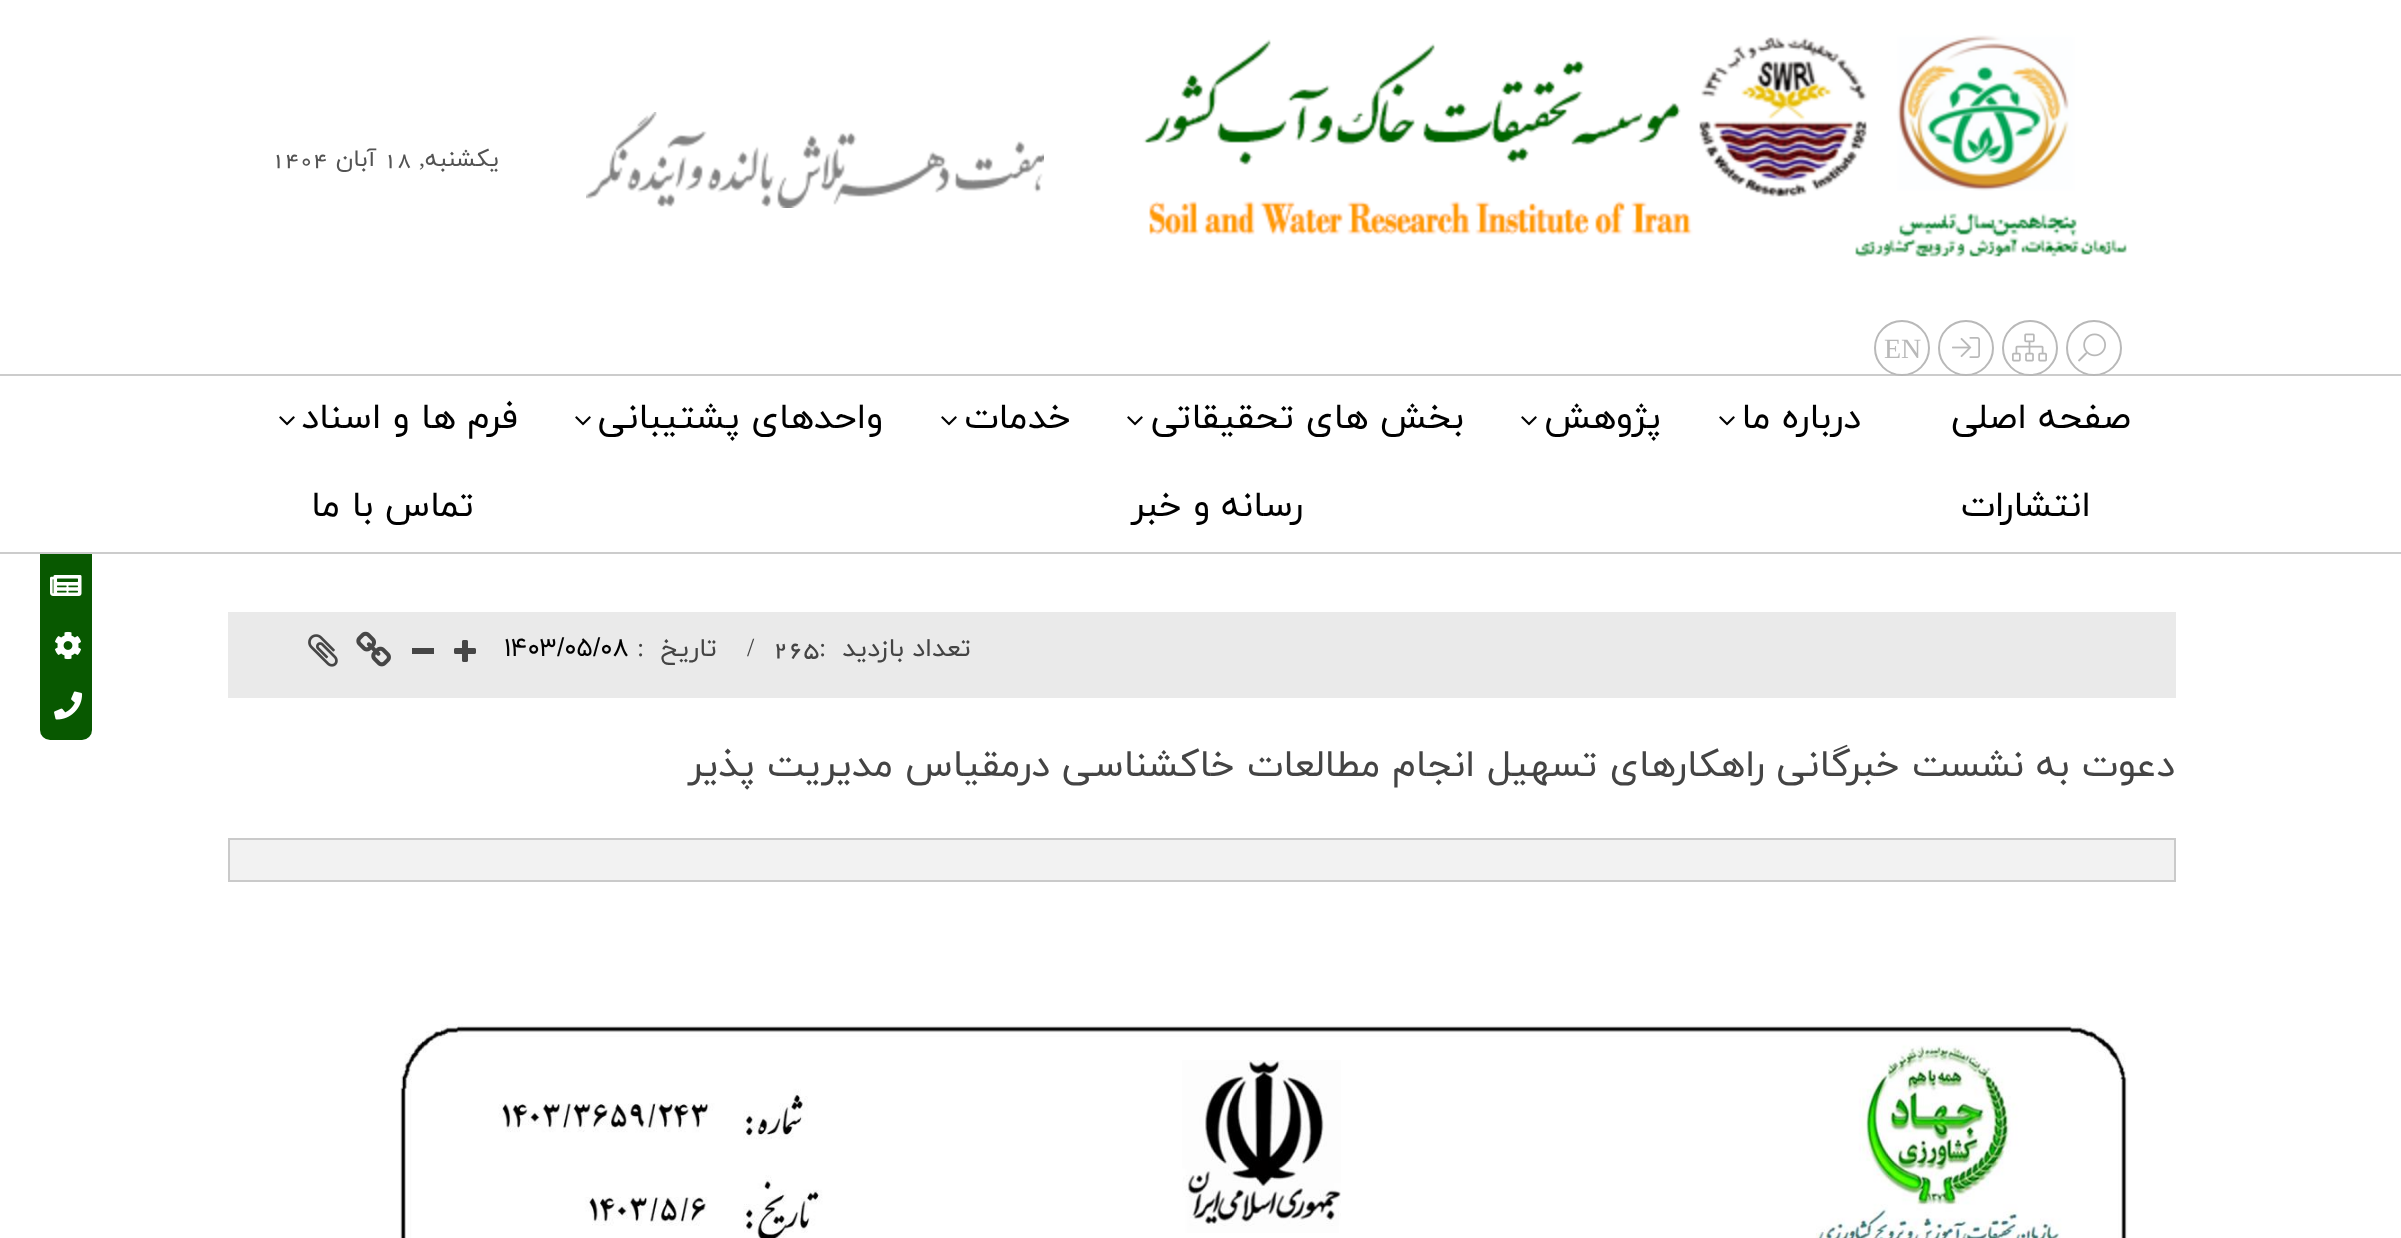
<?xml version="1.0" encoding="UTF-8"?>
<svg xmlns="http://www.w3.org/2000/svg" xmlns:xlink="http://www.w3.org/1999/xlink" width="2401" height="1238">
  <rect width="100%" height="100%" fill="#ffffff" />
  <image x="1143" y="35" width="984" height="222" xlink:href="image1.png" />
  <image x="586" y="112" width="458" height="96" xlink:href="image2.png" />
  <rect x="40" y="500" width="52" height="240" rx="10" fill="#085800" />
  <rect x="-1" y="375" width="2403" height="178" fill="none" stroke="#cccccc" stroke-width="2" />
  <circle cx="2094" cy="348" r="27" fill="none" stroke="#b9b9b9" stroke-width="2" />
  <image x="2078" y="333" width="28" height="29" xlink:href="image3.png" />
  <circle cx="2030" cy="348" r="27" fill="none" stroke="#b9b9b9" stroke-width="2" />
  <image x="2012" y="333" width="35" height="29" xlink:href="image4.png" />
  <circle cx="1966" cy="348" r="27" fill="none" stroke="#b9b9b9" stroke-width="2" />
  <image x="1952" y="337" width="28" height="21" xlink:href="image5.png" />
  <circle cx="1902" cy="348" r="27" fill="none" stroke="#b9b9b9" stroke-width="2" />
  <rect x="40" y="500" width="52" height="52" fill="#ffffff" />
  <image x="1719" y="416" width="16" height="10" xlink:href="image6.png" />
  <image x="1521" y="416" width="16" height="10" xlink:href="image6.png" />
  <image x="1127" y="416" width="16" height="10" xlink:href="image6.png" />
  <image x="941" y="416" width="16" height="10" xlink:href="image6.png" />
  <image x="575" y="416" width="16" height="10" xlink:href="image6.png" />
  <image x="279" y="416" width="16" height="10" xlink:href="image6.png" />
  <image x="50" y="575" width="32" height="21" xlink:href="image7.png" />
  <image x="55" y="631" width="26" height="29" xlink:href="image8.png" />
  <image x="54" y="691" width="29" height="29" xlink:href="image9.png" />
  <rect x="228" y="612" width="1948" height="86" fill="#eaeaea" />
  <image x="454" y="640" width="22" height="22" xlink:href="image10.png" />
  <rect x="412" y="648" width="22" height="6" fill="#464646" />
  <image x="356" y="631" width="35" height="36" xlink:href="image11.png" />
  <image x="308" y="634" width="30" height="33" xlink:href="image12.png" />
  <rect x="229" y="839" width="1946" height="42" fill="#f2f2f2" stroke="#cacaca" stroke-width="2" />
  <image x="400" y="1024" width="1728" height="214" xlink:href="image13.png" />
  <text x="499" y="166" style="font-family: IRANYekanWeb; font-size: 24px; direction: rtl; fill: #535353">يکشنبه</text>
  <text x="425" y="166" style="font-family: Liberation Serif; font-size: 24px; direction: rtl; fill: #535353">,</text>
  <text x="383" y="166" style="font-family: IRANYekanWeb; font-size: 24px; fill: #535353">18</text>
  <text x="376" y="166" style="font-family: IRANYekanWeb; font-size: 24px; direction: rtl; fill: #535353">آبان</text>
  <text x="271" y="166" style="font-family: IRANYekanWeb; font-size: 24px; fill: #535353">1404</text>
  <text x="1884" y="358" style="font-family: Liberation Serif; font-size: 28px; fill: #b9b9b9">EN</text>
  <text x="2131" y="428" style="font-family: IRANYekanWeb; font-size: 36px; direction: rtl; fill: #000000">صفحه اصلی</text>
  <text x="1861" y="428" style="font-family: IRANYekanWeb; font-size: 36px; direction: rtl; fill: #000000">درباره ما</text>
  <text x="1661" y="428" style="font-family: IRANYekanWeb; font-size: 36px; direction: rtl; fill: #000000">پژوهش</text>
  <text x="1464" y="428" style="font-family: IRANYekanWeb; font-size: 36px; direction: rtl; fill: #000000">بخش های تحقیقاتی</text>
  <text x="1071" y="428" style="font-family: IRANYekanWeb; font-size: 36px; direction: rtl; fill: #000000">خدمات</text>
  <text x="883" y="428" style="font-family: IRANYekanWeb; font-size: 36px; direction: rtl; fill: #000000">واحدهای پشتیبانی</text>
  <text x="518" y="428" style="font-family: IRANYekanWeb; font-size: 36px; direction: rtl; fill: #000000">فرم ها و اسناد</text>
  <text x="2091" y="516" style="font-family: IRANYekanWeb; font-size: 36px; direction: rtl; fill: #000000">انتشارات</text>
  <text x="1303" y="516" style="font-family: IRANYekanWeb; font-size: 36px; direction: rtl; fill: #000000">رسانه و خبر</text>
  <text x="474" y="516" style="font-family: IRANYekanWeb; font-size: 36px; direction: rtl; fill: #000000">تماس با ما</text>
  <text x="971" y="656" style="font-family: IRANYekanWeb; font-size: 26px; direction: rtl; fill: #444444">تعداد بازدید</text>
  <text x="819" y="656" style="font-family: Liberation Serif; font-size: 26px; fill: #444444">:</text>
  <text x="773" y="656" style="font-family: IRANYekanWeb; font-size: 26px; fill: #444444">265</text>
  <text x="747" y="656" style="font-family: Liberation Serif; font-size: 26px; fill: #444444">/</text>
  <text x="717" y="656" style="font-family: IRANYekanWeb; font-size: 26px; direction: rtl; fill: #444444">تاريخ</text>
  <text x="637" y="656" style="font-family: Liberation Serif; font-size: 26px; fill: #444444">:</text>
  <text x="600" y="656" style="font-family: IRANYekanWeb; font-size: 26px; fill: #000000">۰۸</text>
  <text x="593" y="656" style="font-family: Liberation Sans; font-size: 26px; fill: #000000">/</text>
  <text x="564" y="656" style="font-family: IRANYekanWeb; font-size: 26px; fill: #000000">۰۵</text>
  <text x="557" y="656" style="font-family: Liberation Sans; font-size: 26px; fill: #000000">/</text>
  <text x="504" y="656" style="font-family: IRANYekanWeb; font-size: 26px; fill: #000000">۱۴۰۳</text>
  <text x="2175" y="776" style="font-family: IRANYekanWeb; font-size: 38px; direction: rtl; fill: #444444">دعوت به نشست خبرگانی راهكارهای تسهیل انجام مطالعات خاكشناسی</text>
  <text x="1050" y="776" style="font-family: IRANYekanWeb; font-size: 38px; direction: rtl; fill: #444444">درمقیاس مدیریت پذیر</text>
</svg>
